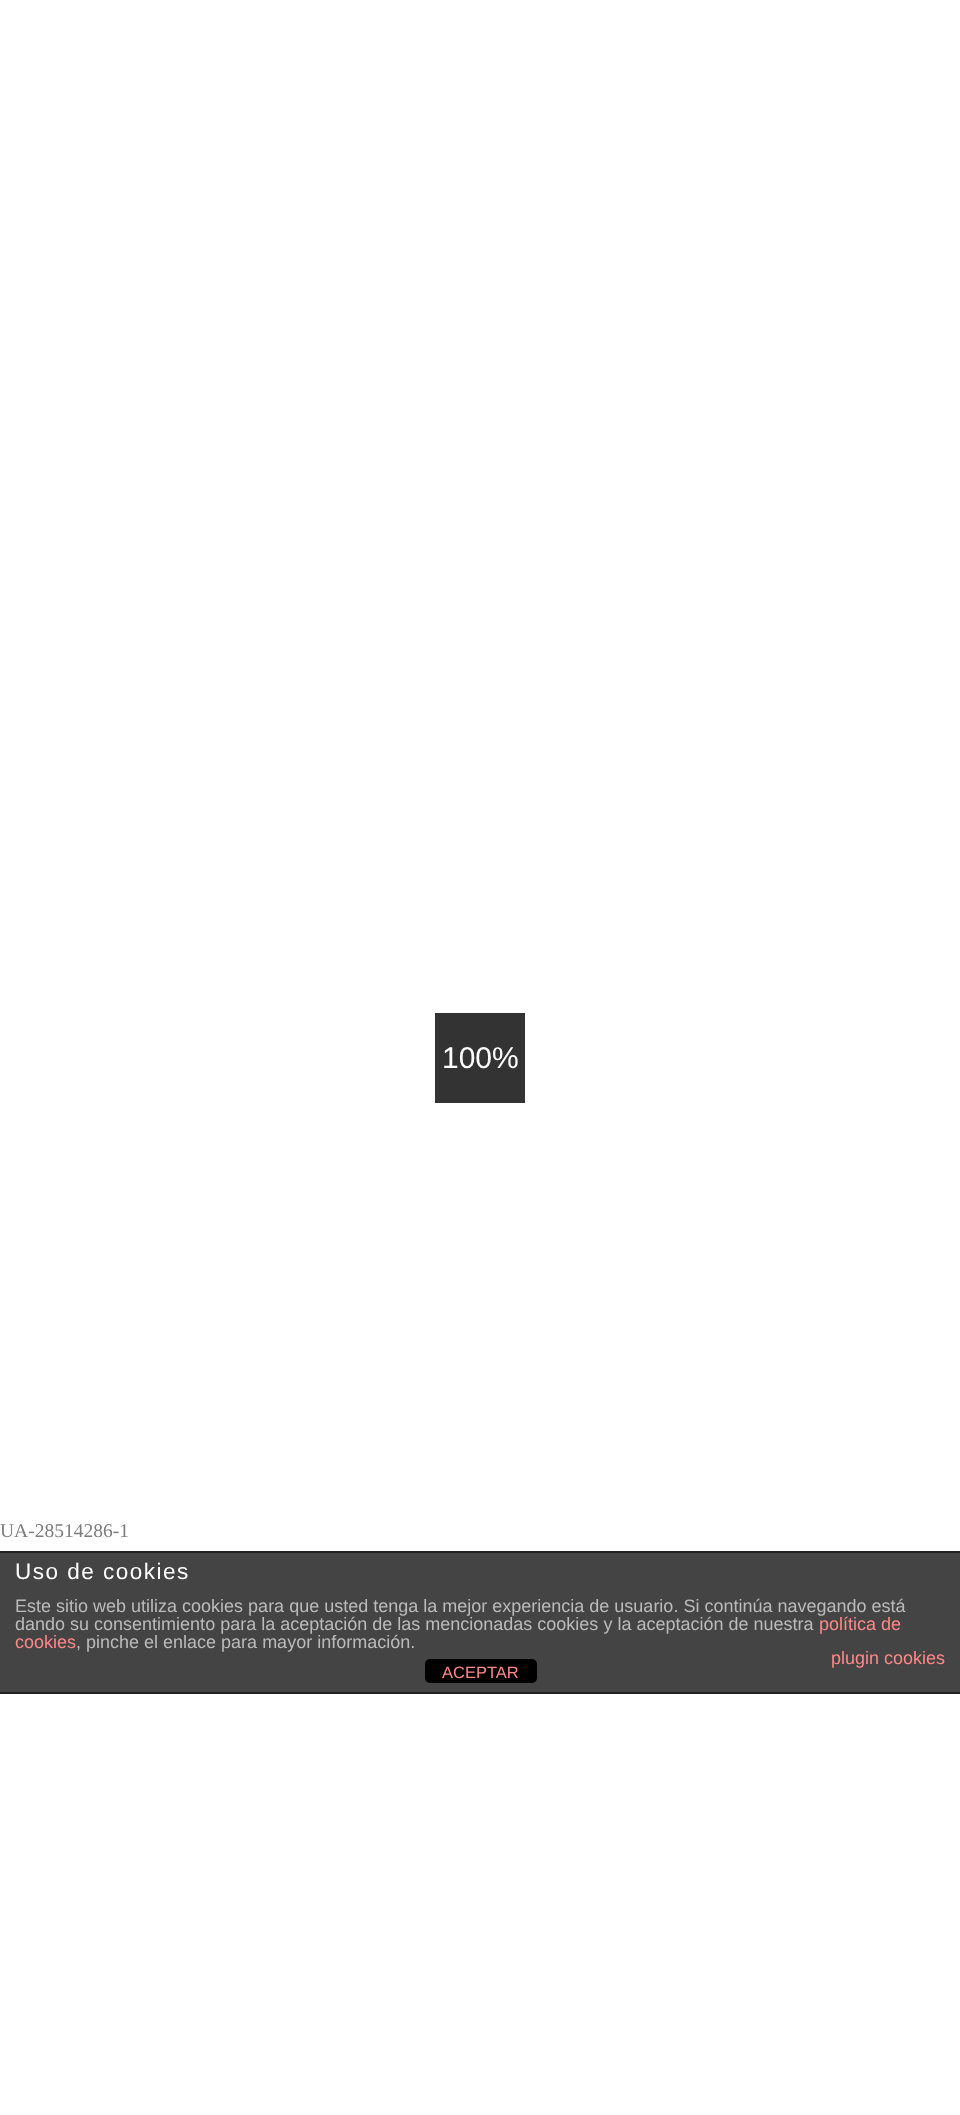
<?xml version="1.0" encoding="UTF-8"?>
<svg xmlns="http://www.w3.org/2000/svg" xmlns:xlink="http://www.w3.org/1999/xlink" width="960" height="2115">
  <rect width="100%" height="100%" fill="#ffffff" />
  <rect x="435" y="1013" width="90" height="90" fill="#333333" />
  <rect y="1553" width="960" height="139" fill="#444444" />
  <rect y="1551" width="960" height="2" fill="#222222" />
  <rect y="1692" width="960" height="2" fill="#222222" />
  <rect x="425" y="1659" width="112" height="24" rx="5" fill="#000000" />
  <text x="442" y="1068" style="font-family: Liberation Sans; font-size: 30px; fill: #ffffff">100%</text>
  <text x="0" y="1537" style="font-family: Liberation Serif; font-size: 19.5px; fill: #7d7d7d">UA-28514286-1</text>
  <text x="15" y="1579" style="font-family: Liberation Sans; font-size: 22.5px; letter-spacing: 1.5px; fill: #ffffff">Uso de cookies</text>
  <text x="15" y="1612" style="font-family: Liberation Sans; font-size: 18px; fill: #bbbbbb">Este sitio web utiliza cookies para que usted tenga la mejor experiencia de usuario. Si continúa navegando está</text>
  <text x="15" y="1630" style="font-family: Liberation Sans; font-size: 18px; fill: #bbbbbb">dando su consentimiento para la aceptación de las mencionadas cookies y la aceptación de nuestra</text>
  <text x="819" y="1630" style="font-family: Liberation Sans; font-size: 18px; fill: #ff8888">política de</text>
  <text x="15" y="1648" style="font-family: Liberation Sans; font-size: 18px; fill: #ff8888">cookies</text>
  <text x="76" y="1648" style="font-family: Liberation Sans; font-size: 18px; fill: #bbbbbb">, pinche el enlace para mayor información.</text>
  <text x="831" y="1664" style="font-family: Liberation Sans; font-size: 18px; fill: #ff8888">plugin cookies</text>
  <text x="442" y="1678" style="font-family: Liberation Sans; font-size: 16.5px; fill: #ff8888">ACEPTAR</text>
</svg>
